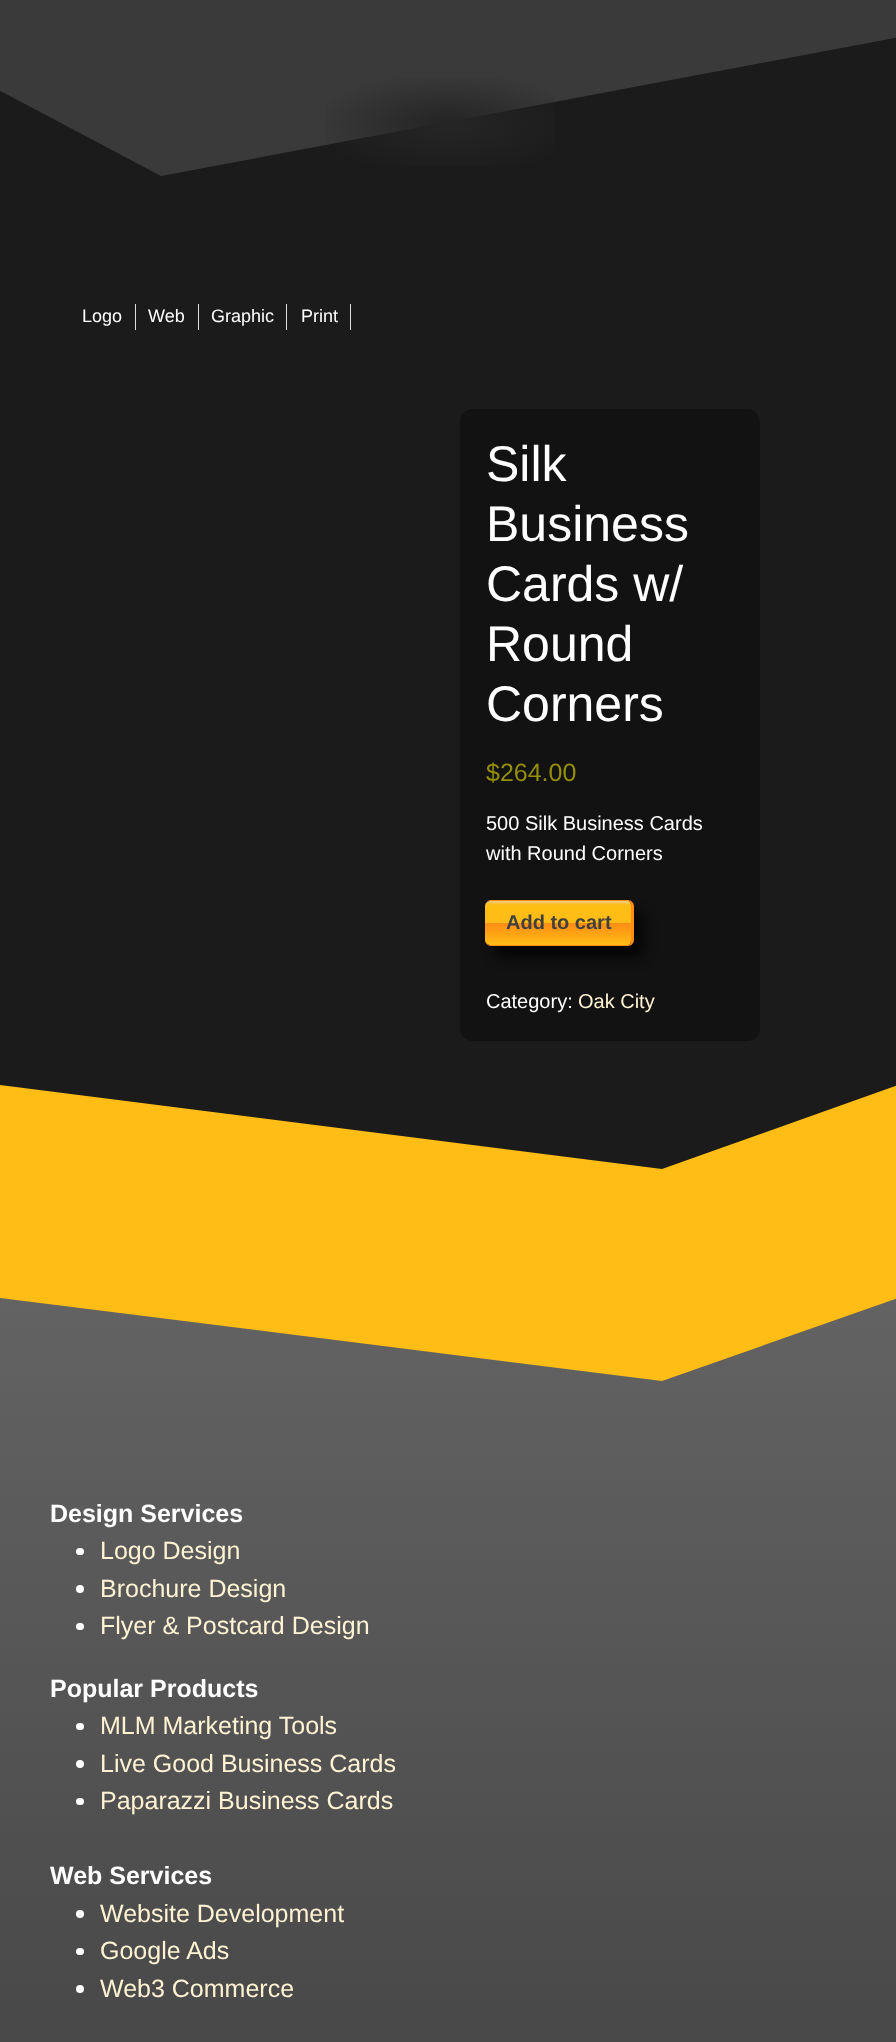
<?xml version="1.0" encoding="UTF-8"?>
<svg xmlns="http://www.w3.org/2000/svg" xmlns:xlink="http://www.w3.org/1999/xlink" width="896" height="2042">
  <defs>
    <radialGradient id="g1" gradientUnits="userSpaceOnUse" cx="0" cy="0" r="1" gradientTransform="matrix(220 0 0 85 448 125)"><stop offset="0.04" stop-color="#252525" /><stop offset="0.62" stop-color="#252525" stop-opacity="0" /></radialGradient>
    <linearGradient id="g2" gradientUnits="userSpaceOnUse" x1="558" y1="901" x2="558" y2="945"><stop offset="0" stop-color="#eccf84" /><stop offset="0.09" stop-color="#ffbd15" /><stop offset="0.49" stop-color="#ffbd15" /><stop offset="0.5" stop-color="#ff8c15" /><stop offset="1" stop-color="#ffbd15" /></linearGradient>
    <linearGradient id="g3" gradientUnits="userSpaceOnUse" x1="448" y1="1294" x2="448" y2="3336"><stop offset="0" stop-color="#636363" /><stop offset="1" stop-color="#1a1a1a" /></linearGradient>
    <clipPath id="clip1"><rect y="1293" width="896" height="90" /></clipPath>
  </defs>
  <rect width="100%" height="100%" fill="#1b1b1b" />
  <path d="M 161 176 l -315 -167 v -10 h 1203 v 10 z" fill="#3a3a3a" />
  <rect x="326" y="78" width="229" height="88" fill="url(#g1)" />
  <rect x="135" y="304" width="1" height="26" fill="#dddddd" />
  <rect x="198" y="304" width="1" height="26" fill="#dddddd" />
  <rect x="286" y="304" width="1" height="26" fill="#dddddd" />
  <rect x="350" y="304" width="1" height="26" fill="#dddddd" />
  <rect x="460" y="409" width="300" height="632" rx="13" fill="#121212" />
  <rect x="495" y="911" width="149" height="47" rx="6" fill="#000000" fill-opacity="0.68" filter="blur(6px)" />
  <path d="M 491 901 h 137 c 2 0 3 2 3 5 v 34 c 0 3 -1 5 -3 5 h -137 c -3 0 -6 -2 -6 -5 v -34 c 0 -3 3 -5 6 -5 z" fill="url(#g2)" />
  <path d="M 491 900 h 137 c 3 0 6 3 6 6 v 34 c 0 3 -3 6 -6 6 h -137 c -3 0 -6 -3 -6 -6 v -34 c 0 -3 3 -6 6 -6 z m 0 1 h 137 c 2 0 3 2 3 5 v 34 c 0 3 -1 5 -3 5 h -137 c -3 0 -6 -2 -6 -5 v -34 c 0 -3 3 -5 6 -5 z" fill="#ff8c15" fill-rule="evenodd" />
  <rect y="1085" width="896" height="208" fill="#ffbd15" />
  <path d="M 662 1169 l 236 -84 v -5 h -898 v 5 z" fill="#1b1b1b" />
  <rect y="1298" width="896" height="744" fill="url(#g3)" />
  <g clip-path="url(#clip1)">
    <path d="M 662 1381 l 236 -83 v -6 h -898 v 6 z" fill="#ffbd15" />
  </g>
  <rect x="76" y="1548" width="8" height="7" rx="3.5" fill="#ffffff" />
  <circle cx="80" cy="1589" r="4" fill="#ffffff" />
  <rect x="76" y="1623" width="8" height="7" rx="3.5" fill="#ffffff" />
  <rect x="76" y="1723" width="8" height="7" rx="3.5" fill="#ffffff" />
  <circle cx="80" cy="1764" r="4" fill="#ffffff" />
  <rect x="76" y="1798" width="8" height="7" rx="3.5" fill="#ffffff" />
  <circle cx="80" cy="1914" r="4" fill="#ffffff" />
  <rect x="76" y="1948" width="8" height="7" rx="3.5" fill="#ffffff" />
  <circle cx="80" cy="1989" r="4" fill="#ffffff" />
  <text x="82" y="322" style="font-family: Liberation Sans; font-size: 18px; fill: #ffffff">Logo</text>
  <text x="148" y="322" style="font-family: Liberation Sans; font-size: 18px; fill: #ffffff">Web</text>
  <text x="211" y="322" style="font-family: Liberation Sans; font-size: 18px; fill: #ffffff">Graphic</text>
  <text x="301" y="322" style="font-family: Liberation Sans; font-size: 18px; fill: #ffffff">Print</text>
  <text x="486" y="481" style="font-family: Liberation Sans; font-size: 50px; fill: #ffffff">Silk</text>
  <text x="486" y="541" style="font-family: Liberation Sans; font-size: 50px; fill: #ffffff">Business</text>
  <text x="486" y="601" style="font-family: Liberation Sans; font-size: 50px; fill: #ffffff">Cards w/</text>
  <text x="486" y="661" style="font-family: Liberation Sans; font-size: 50px; fill: #ffffff">Round</text>
  <text x="486" y="721" style="font-family: Liberation Sans; font-size: 50px; fill: #ffffff">Corners</text>
  <text x="486" y="781" style="font-family: Liberation Sans; font-size: 25px; fill: #958e09">$264.00</text>
  <text x="486" y="830" style="font-family: Liberation Sans; font-size: 20px; fill: #ffffff">500 Silk Business Cards</text>
  <text x="486" y="860" style="font-family: Liberation Sans; font-size: 20px; fill: #ffffff">with Round Corners</text>
  <text x="506" y="929" style="font-family: Liberation Sans; font-size: 20px; font-weight: bold; fill: #414040">Add to cart</text>
  <text x="486" y="1008" style="font-family: Liberation Sans; font-size: 20px; fill: #ffffff">Category:</text>
  <text x="578" y="1008" style="font-family: Liberation Sans; font-size: 20px; fill: #fff3d4">Oak City</text>
  <text x="50" y="1522" style="font-family: Liberation Sans; font-size: 25px; font-weight: bold; fill: #ffffff">Design Services</text>
  <text x="100" y="1559" style="font-family: Liberation Sans; font-size: 25px; fill: #fff3d4">Logo Design</text>
  <text x="100" y="1597" style="font-family: Liberation Sans; font-size: 25px; fill: #fff3d4">Brochure Design</text>
  <text x="100" y="1634" style="font-family: Liberation Sans; font-size: 25px; fill: #fff3d4">Flyer &amp; Postcard Design</text>
  <text x="50" y="1697" style="font-family: Liberation Sans; font-size: 25px; font-weight: bold; fill: #ffffff">Popular Products</text>
  <text x="100" y="1734" style="font-family: Liberation Sans; font-size: 25px; fill: #fff3d4">MLM Marketing Tools</text>
  <text x="100" y="1772" style="font-family: Liberation Sans; font-size: 25px; fill: #fff3d4">Live Good Business Cards</text>
  <text x="100" y="1809" style="font-family: Liberation Sans; font-size: 25px; fill: #fff3d4">Paparazzi Business Cards</text>
  <text x="50" y="1884" style="font-family: Liberation Sans; font-size: 25px; font-weight: bold; fill: #ffffff">Web Services</text>
  <text x="100" y="1922" style="font-family: Liberation Sans; font-size: 25px; fill: #fff3d4">Website Development</text>
  <text x="100" y="1959" style="font-family: Liberation Sans; font-size: 25px; fill: #fff3d4">Google Ads</text>
  <text x="100" y="1997" style="font-family: Liberation Sans; font-size: 25px; fill: #fff3d4">Web3 Commerce</text>
</svg>
